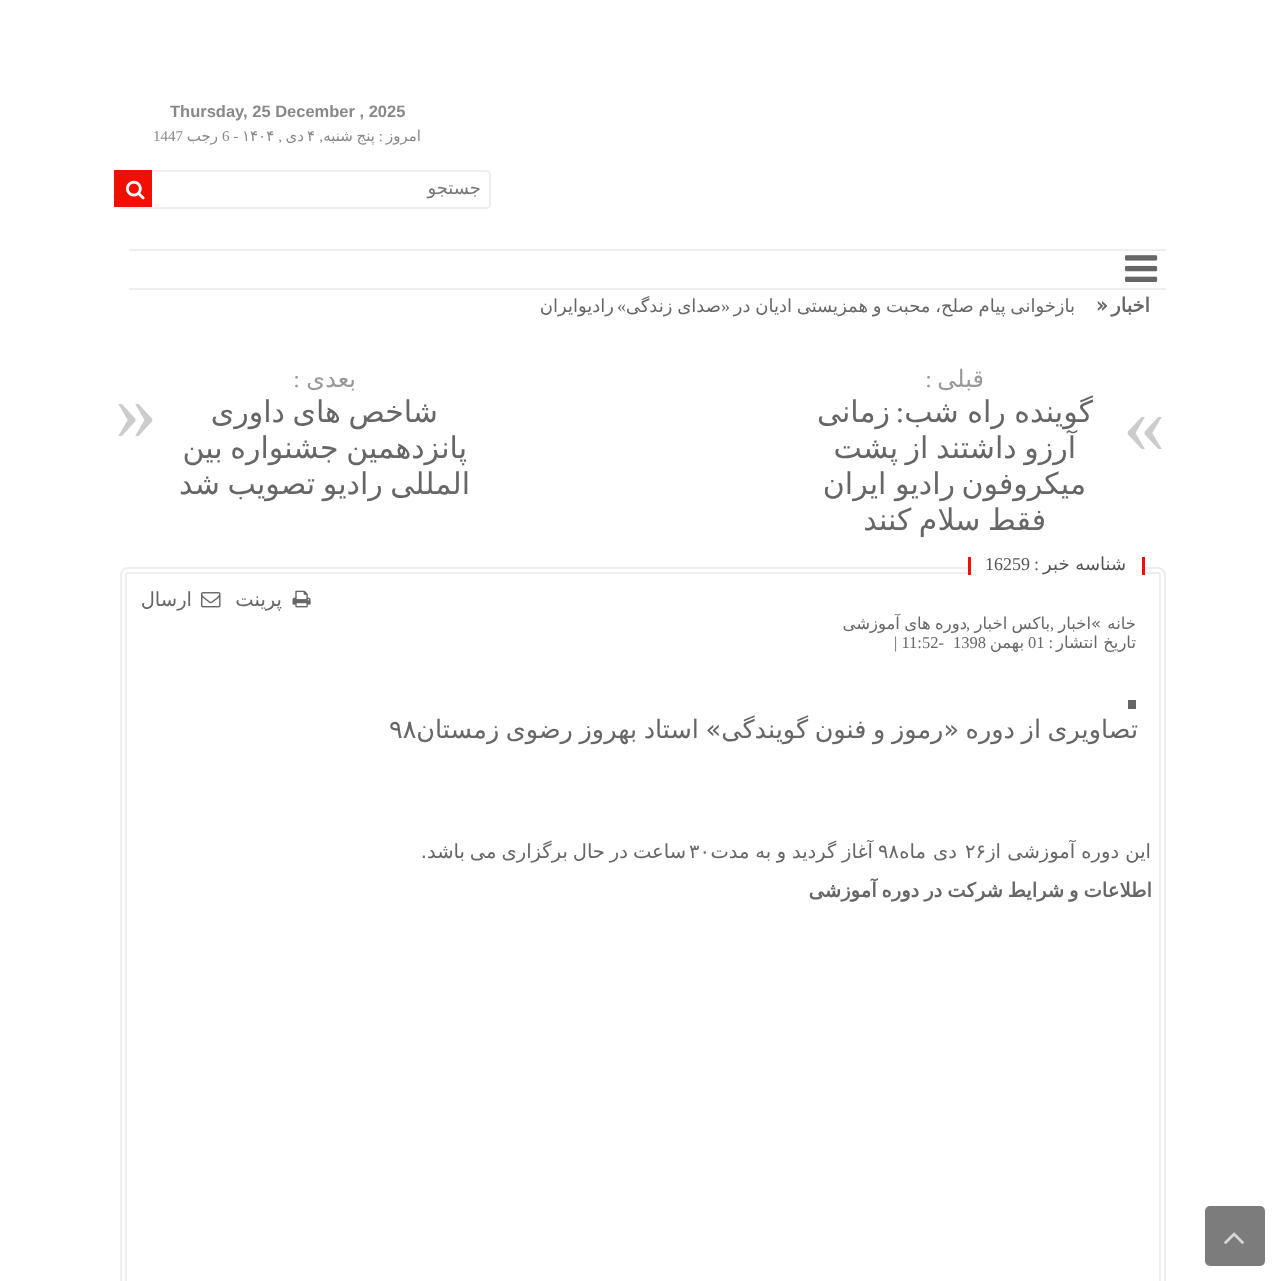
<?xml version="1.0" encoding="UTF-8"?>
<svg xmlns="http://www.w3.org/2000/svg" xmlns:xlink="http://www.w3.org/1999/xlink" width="1279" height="1281">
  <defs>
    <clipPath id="clip1"><rect x="116" y="365" width="1050" height="172" /></clipPath>
  </defs>
  <rect width="100%" height="100%" fill="#ffffff" />
  <rect x="117" y="171" width="373" height="37" rx="4" fill="none" stroke="#eeeeee" stroke-width="2" />
  <rect x="114" y="170" width="38" height="37" fill="#f00f00" />
  <image x="126" y="180" width="19" height="20" xlink:href="image1.png" />
  <rect x="129" y="249" width="1037" height="2" fill="#eeeeee" />
  <rect x="129" y="288" width="1037" height="2" fill="#eeeeee" />
  <image x="1125" y="255" width="33" height="27" xlink:href="image2.png" />
  <rect x="121" y="568" width="1044" height="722" rx="7" fill="none" stroke="#eeeeee" stroke-width="2" />
  <rect x="126" y="573" width="1034" height="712" rx="2" fill="none" stroke="#eeeeee" stroke-width="2" />
  <rect x="968" y="554" width="177" height="22" rx="5" fill="#ffffff" />
  <rect x="1142" y="557" width="3" height="18" fill="#f00f00" />
  <rect x="968" y="557" width="3" height="18" fill="#f00f00" />
  <image x="292" y="590" width="19" height="18" xlink:href="image3.png" />
  <image x="201" y="592" width="20" height="16" xlink:href="image4.png" />
  <rect x="1128" y="700" width="8" height="9" fill="#666666" />
  <rect x="1205" y="1206" width="60" height="60" rx="5" fill="#7c7c7c" />
  <image x="1224" y="1232" width="20" height="12" xlink:href="image5.png" />
  <text x="170" y="117" style="font-family: Liberation Sans; font-size: 16.5px; font-weight: bold; fill: #888888">Thursday, 25 December , 2025</text>
  <text x="421" y="141" style="font-family: DejaVu Sans; font-size: 15px; direction: rtl; fill: #888888">امروز</text>
  <text x="383" y="141" style="font-family: Liberation Serif; font-size: 15px; direction: rtl; fill: #888888">:</text>
  <text x="375" y="141" word-spacing="-1" style="font-family: DejaVu Sans; font-size: 15px; direction: rtl; fill: #888888">پنج شنبه</text>
  <text x="323" y="141" style="font-family: Liberation Serif; font-size: 15px; direction: rtl; fill: #888888">,</text>
  <text x="307" y="141" style="font-family: DejaVu Sans; font-size: 15px; fill: #888888">۴</text>
  <text x="304" y="141" style="font-family: DejaVu Sans; font-size: 15px; direction: rtl; fill: #888888">دی</text>
  <text x="282" y="141" style="font-family: Liberation Serif; font-size: 15px; direction: rtl; fill: #888888">,</text>
  <text x="242" y="141" style="font-family: DejaVu Sans; font-size: 15px; fill: #888888">۱۴۰۴</text>
  <text x="222" y="141" style="font-family: Liberation Serif; font-size: 15px; fill: #888888">6 -</text>
  <text x="218" y="141" style="font-family: DejaVu Sans; font-size: 15px; direction: rtl; fill: #888888">رجب</text>
  <text x="153" y="141" style="font-family: Liberation Serif; font-size: 15px; fill: #888888">1447</text>
  <text x="481" y="194" style="font-family: DejaVu Sans; font-size: 18px; direction: rtl; fill: #757575">جستجو</text>
  <text x="1150" y="312" style="font-family: DejaVu Sans; font-size: 19.5px; font-weight: bold; direction: rtl; fill: #666666">اخبار</text>
  <text x="1096" y="312" style="font-family: DejaVu Sans; font-size: 19.5px; font-weight: bold; fill: #666666">»</text>
  <text x="1075" y="312" word-spacing="-1" style="font-family: DejaVu Sans; font-size: 18px; direction: rtl; fill: #666666">بازخوانی پیام صلح، محبت و همزیستی ادیان در</text>
  <text x="730" y="312" style="font-family: Liberation Serif; font-size: 18px; direction: rtl; fill: #666666">«</text>
  <text x="721" y="312" word-spacing="-1" style="font-family: DejaVu Sans; font-size: 18px; direction: rtl; fill: #666666">صدای زندگی</text>
  <text x="626" y="312" style="font-family: Liberation Serif; font-size: 18px; direction: rtl; fill: #666666">»</text>
  <text x="614" y="312" style="font-family: DejaVu Sans; font-size: 18px; direction: rtl; fill: #666666">رادیوایران</text>
  <text x="984" y="387" style="font-family: DejaVu Sans; font-size: 24px; direction: rtl; fill: #999999">قبلی</text>
  <text x="932" y="387" style="font-family: Liberation Serif; font-size: 24px; direction: rtl; fill: #999999">:</text>
  <text x="1093" y="422" word-spacing="-1" style="font-family: DejaVu Sans; font-size: 30px; direction: rtl; fill: #666666">گوینده راه شب</text>
  <text x="904" y="422" style="font-family: Liberation Serif; font-size: 30px; direction: rtl; fill: #666666">:</text>
  <text x="890" y="422" style="font-family: DejaVu Sans; font-size: 30px; direction: rtl; fill: #666666">زمانی</text>
  <text x="1123" y="452" style="font-family: Liberation Serif; font-size: 84px; fill: #cccccc">«</text>
  <text x="1076" y="458" word-spacing="-2" style="font-family: DejaVu Sans; font-size: 30px; direction: rtl; fill: #666666">آرزو داشتند از پشت</text>
  <text x="1086" y="494" style="font-family: DejaVu Sans; font-size: 30px; direction: rtl; fill: #666666">میکروفون</text>
  <text x="955" y="494" word-spacing="-1" style="font-family: DejaVu Sans; font-size: 30px; direction: rtl; fill: #666666">رادیو ایران</text>
  <g clip-path="url(#clip1)">
    <text x="1046" y="530" word-spacing="-2" style="font-family: DejaVu Sans; font-size: 30px; direction: rtl; fill: #666666">فقط سلام کنند</text>
  </g>
  <text x="356" y="387" style="font-family: DejaVu Sans; font-size: 24px; direction: rtl; fill: #999999">بعدی</text>
  <text x="300" y="387" style="font-family: Liberation Serif; font-size: 24px; direction: rtl; fill: #999999">:</text>
  <text x="438" y="422" word-spacing="-2" style="font-family: DejaVu Sans; font-size: 30px; direction: rtl; fill: #666666">شاخص های داوری</text>
  <text x="115" y="439" style="font-family: Liberation Serif; font-size: 84px; fill: #cccccc">»</text>
  <text x="467" y="458" word-spacing="-2" style="font-family: DejaVu Sans; font-size: 30px; direction: rtl; fill: #666666">پانزدهمین جشنواره بین</text>
  <text x="470" y="494" word-spacing="-2" style="font-family: DejaVu Sans; font-size: 30px; direction: rtl; fill: #666666">المللی رادیو تصویب شد</text>
  <text x="1126" y="570" style="font-family: DejaVu Sans; font-size: 18px; direction: rtl; fill: #555555">شناسه خبر</text>
  <text x="1039" y="570" style="font-family: Liberation Serif; font-size: 18px; direction: rtl; fill: #555555">:</text>
  <text x="985" y="570" style="font-family: Liberation Serif; font-size: 18px; fill: #555555">16259</text>
  <text x="282" y="606" style="font-family: DejaVu Sans; font-size: 19.5px; direction: rtl; fill: #666666">پرینت</text>
  <text x="192" y="606" style="font-family: DejaVu Sans; font-size: 19.5px; direction: rtl; fill: #666666">ارسال</text>
  <text x="1136" y="629" word-spacing="1" style="font-family: DejaVu Sans; font-size: 16.5px; direction: rtl; fill: #666666">خانه »</text>
  <text x="1091" y="629" style="font-family: DejaVu Sans; font-size: 16.5px; direction: rtl; fill: #666666">اخبار</text>
  <text x="1050" y="629" word-spacing="-1" style="font-family: DejaVu Sans; font-size: 16.5px; direction: rtl; fill: #666666">باکس اخبار</text>
  <text x="967" y="629" word-spacing="-1" style="font-family: DejaVu Sans; font-size: 16.5px; direction: rtl; fill: #666666">دوره های آموزشی</text>
  <text x="1050" y="629" style="font-family: Liberation Serif; font-size: 16.5px; fill: #666666">,</text>
  <text x="966" y="629" style="font-family: Liberation Serif; font-size: 16.5px; fill: #666666">,</text>
  <text x="1136" y="648" style="font-family: DejaVu Sans; font-size: 16.5px; direction: rtl; fill: #666666">تاریخ انتشار</text>
  <text x="1053" y="648" style="font-family: Liberation Serif; font-size: 16.5px; direction: rtl; fill: #666666">:</text>
  <text x="1028" y="648" style="font-family: Liberation Serif; font-size: 16.5px; fill: #666666">01</text>
  <text x="1024" y="648" style="font-family: DejaVu Sans; font-size: 16.5px; direction: rtl; fill: #666666">بهمن</text>
  <text x="953" y="648" style="font-family: Liberation Serif; font-size: 16.5px; fill: #666666">1398</text>
  <text x="894" y="648" style="font-family: Liberation Serif; font-size: 16.5px; fill: #666666">| 11:52-</text>
  <text x="1138" y="738" word-spacing="-1.5" style="font-family: DejaVu Sans; font-size: 25.5px; direction: rtl; fill: #666666">تصاویری از دوره «رموز و فنون گویندگی» استاد بهروز رضوی زمستان</text>
  <text x="389" y="738" style="font-family: DejaVu Sans; font-size: 25.5px; fill: #666666">۹۸</text>
  <text x="1151" y="858" style="font-family: DejaVu Sans; font-size: 19.5px; direction: rtl; fill: #666666">این دوره آموزشی از</text>
  <text x="965" y="858" style="font-family: DejaVu Sans; font-size: 19.5px; fill: #666666">۲۶</text>
  <text x="957" y="858" word-spacing="1" style="font-family: DejaVu Sans; font-size: 19.5px; direction: rtl; fill: #666666">دی ماه</text>
  <text x="878" y="858" style="font-family: DejaVu Sans; font-size: 19.5px; fill: #666666">۹۸</text>
  <text x="873" y="858" word-spacing="-0.5" style="font-family: DejaVu Sans; font-size: 19.5px; direction: rtl; fill: #666666">آغاز گردید و به مدت</text>
  <text x="689" y="858" style="font-family: DejaVu Sans; font-size: 19.5px; fill: #666666">۳۰</text>
  <text x="686" y="858" word-spacing="-1.25" style="font-family: DejaVu Sans; font-size: 19.5px; direction: rtl; fill: #666666">ساعت در حال برگزاری می باشد.</text>
  <text x="1152" y="897" word-spacing="-1.25" style="font-family: DejaVu Sans; font-size: 19.5px; font-weight: bold; direction: rtl; fill: #666666">اطلاعات و شرایط شرکت در دوره آموزشی</text>
</svg>
